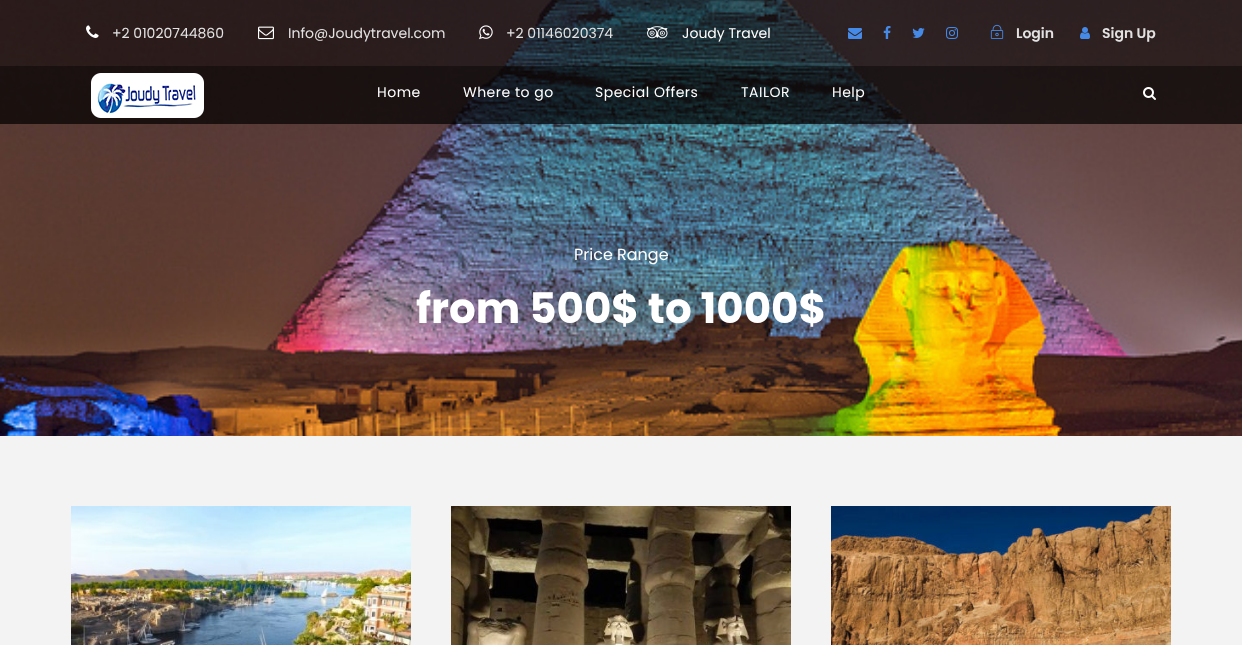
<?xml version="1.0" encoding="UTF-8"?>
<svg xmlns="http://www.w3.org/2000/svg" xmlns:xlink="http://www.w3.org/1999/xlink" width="1242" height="645">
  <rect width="100%" height="100%" fill="#f3f3f3" />
  <image x="0" y="0" width="1242" height="436" xlink:href="image13.png" />
  <rect width="1242" height="66" fill="#000000" fill-opacity="0.5" />
  <image x="86" y="25" width="13" height="13" xlink:href="image1.png" />
  <image x="258" y="26" width="16" height="14" xlink:href="image2.png" />
  <image x="479" y="25" width="14" height="15" xlink:href="image3.png" />
  <image x="647" y="26" width="21" height="13" xlink:href="image4.png" />
  <image x="848" y="28" width="14" height="11" xlink:href="image5.png" />
  <image x="883" y="26" width="8" height="13" xlink:href="image6.png" />
  <image x="912" y="28" width="13" height="10" xlink:href="image7.png" />
  <image x="946" y="27" width="12" height="12" xlink:href="image8.png" />
  <image x="990" y="24" width="14" height="15" xlink:href="image9.png" />
  <image x="1080" y="27" width="10" height="12" xlink:href="image10.png" />
  <rect y="66" width="1242" height="58" fill="#000000" fill-opacity="0.7" />
  <image x="91" y="73" width="113" height="45" xlink:href="image11.png" />
  <image x="1143" y="87" width="13" height="13" xlink:href="image12.png" />
  <image x="71" y="506" width="340" height="139" xlink:href="image14.png" />
  <image x="451" y="506" width="340" height="139" xlink:href="image15.png" />
  <image x="831" y="506" width="340" height="139" xlink:href="image16.png" />
  <text x="112" y="38" style="font-family: Poppins; font-size: 14px; fill: #e2e2e2">+2 01020744860</text>
  <text x="288" y="38" style="font-family: Poppins; font-size: 14px; fill: #e2e2e2">Info@Joudytravel.com</text>
  <text x="506" y="38" style="font-family: Poppins; font-size: 14px; fill: #e2e2e2">+2 01146020374</text>
  <text x="682" y="38" style="font-family: Poppins; font-size: 14px; fill: #ffffff">Joudy Travel</text>
  <text x="1016" y="38" style="font-family: Poppins; font-size: 14px; font-weight: 600; fill: #e2e2e2">Login</text>
  <text x="1102" y="38" style="font-family: Poppins; font-size: 14px; font-weight: 600; fill: #e2e2e2">Sign Up</text>
  <text x="377" y="97" style="font-family: Poppins; font-size: 14px; letter-spacing: 0.5px; fill: #ffffff">Home</text>
  <text x="463" y="97" style="font-family: Poppins; font-size: 14px; letter-spacing: 0.5px; fill: #ffffff">Where to go</text>
  <text x="595" y="97" style="font-family: Poppins; font-size: 14px; letter-spacing: 0.5px; fill: #ffffff">Special Offers</text>
  <text x="741" y="97" style="font-family: Poppins; font-size: 14px; letter-spacing: 0.5px; fill: #ffffff">TAILOR</text>
  <text x="832" y="97" style="font-family: Poppins; font-size: 14px; letter-spacing: 0.5px; fill: #ffffff">Help</text>
  <text x="574" y="260" style="font-family: Poppins; font-size: 16px; fill: #ffffff">Price Range</text>
  <text x="416" y="323" style="font-family: Poppins; font-size: 42px; font-weight: bold; fill: #ffffff">from 500$ to 1000$</text>
</svg>
